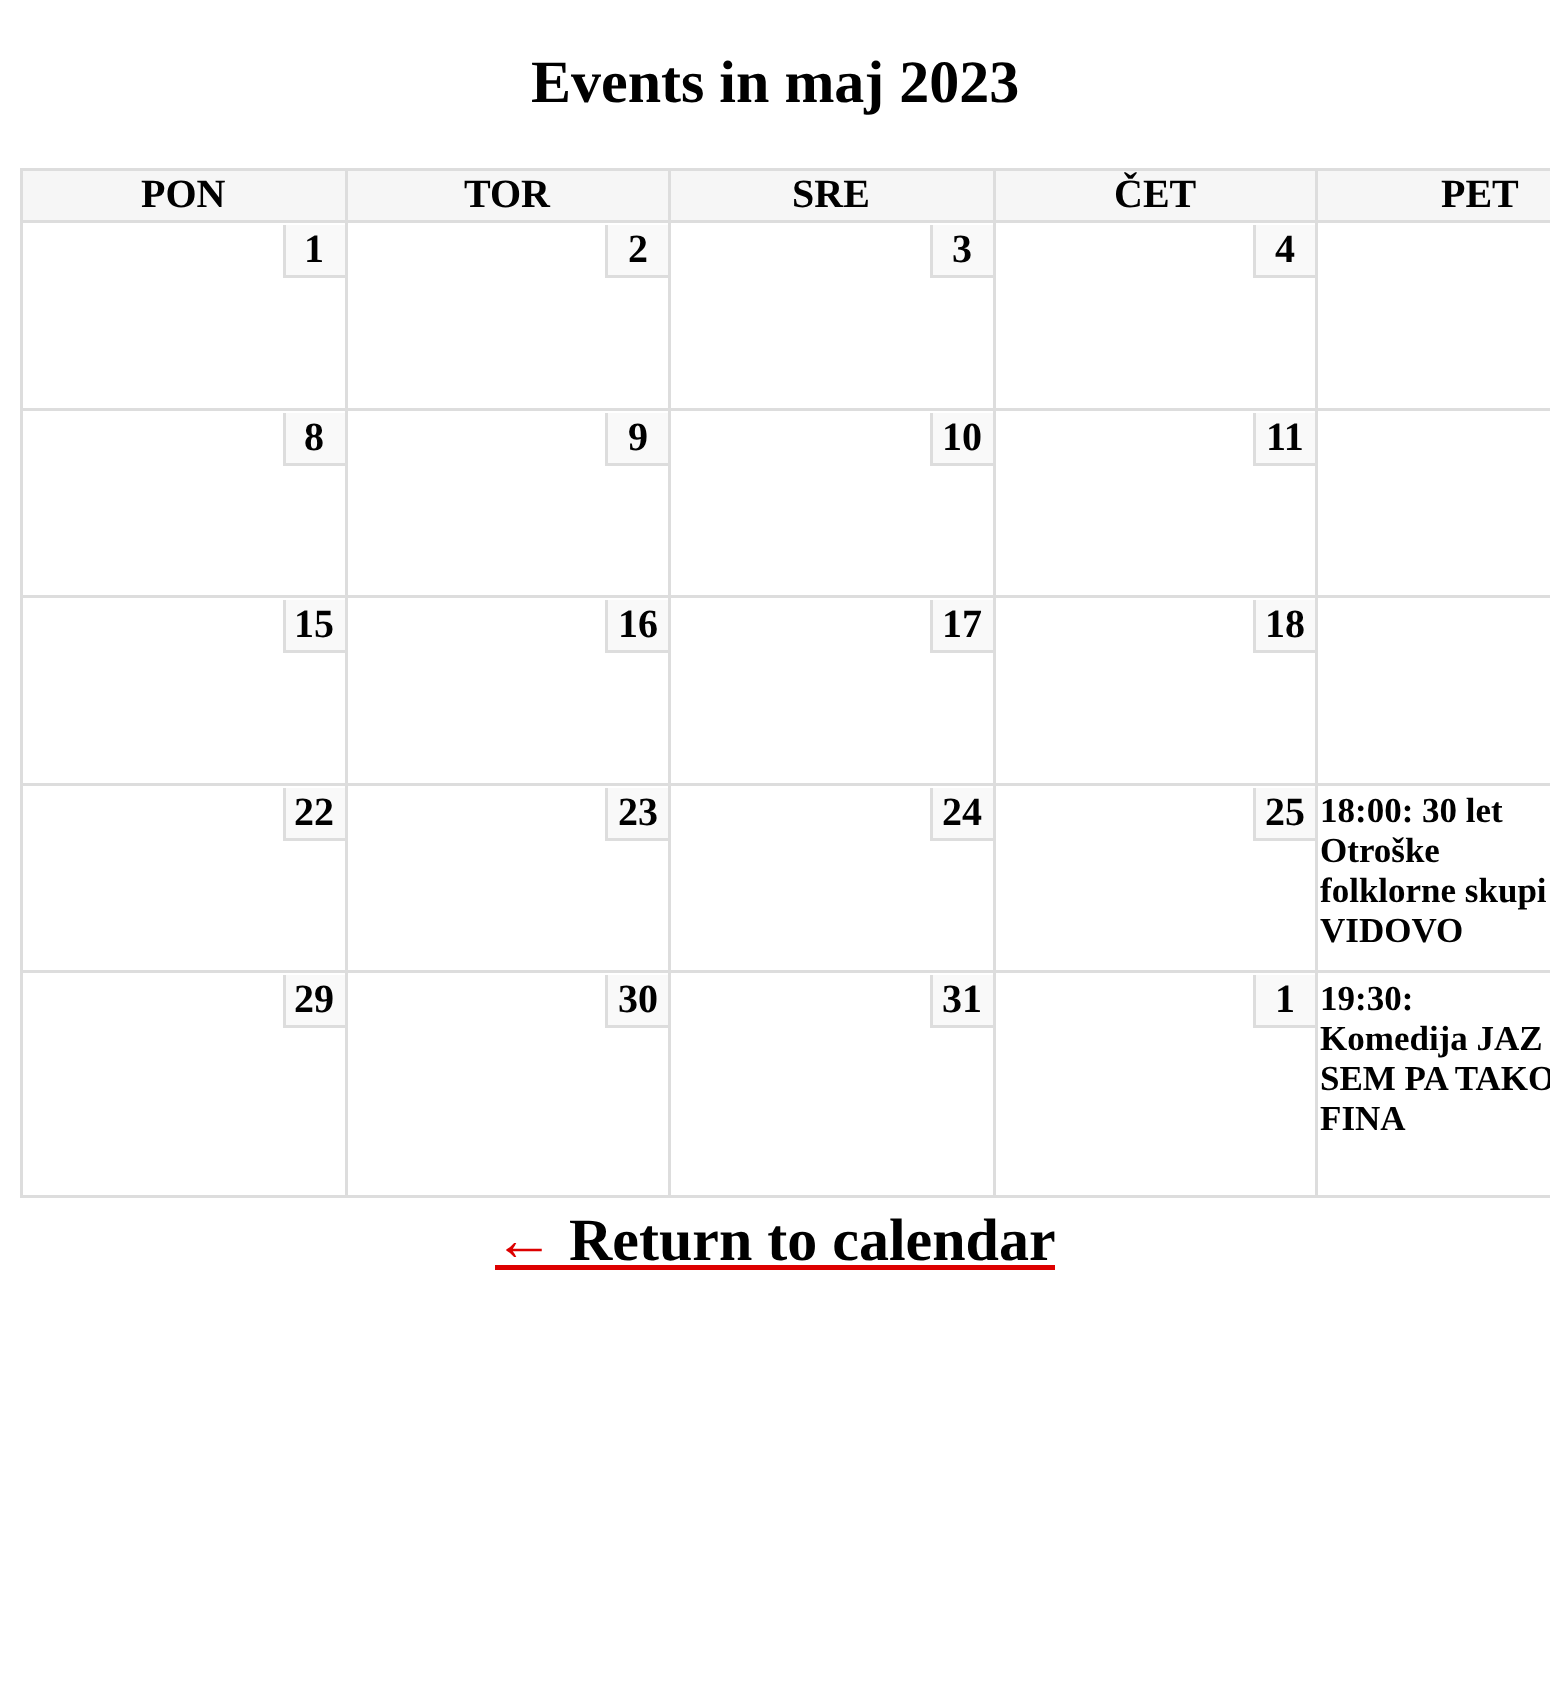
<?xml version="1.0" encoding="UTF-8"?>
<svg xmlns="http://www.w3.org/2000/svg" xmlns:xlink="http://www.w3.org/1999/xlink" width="1550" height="1704">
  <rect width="100%" height="100%" fill="#ffffff" />
  <rect x="20" y="168" width="1530" height="3" fill="#dddddd" />
  <rect x="20" y="1195" width="1530" height="3" fill="#dddddd" />
  <rect x="20" y="168" width="3" height="1030" fill="#dddddd" />
  <rect x="23" y="171" width="322" height="49" fill="#f6f6f6" />
  <rect x="348" y="171" width="320" height="49" fill="#f6f6f6" />
  <rect x="1315" y="220" width="235" height="3" fill="#dddddd" />
  <rect x="1315" y="408" width="235" height="3" fill="#dddddd" />
  <rect x="1315" y="595" width="235" height="3" fill="#dddddd" />
  <rect x="1315" y="783" width="235" height="3" fill="#dddddd" />
  <rect x="1315" y="970" width="235" height="3" fill="#dddddd" />
  <rect x="1315" y="970" width="3" height="228" fill="#dddddd" />
  <rect x="993" y="970" width="325" height="3" fill="#dddddd" />
  <rect x="1315" y="783" width="3" height="190" fill="#dddddd" />
  <rect x="993" y="783" width="325" height="3" fill="#dddddd" />
  <rect x="1315" y="595" width="3" height="190" fill="#dddddd" />
  <rect x="993" y="595" width="325" height="3" fill="#dddddd" />
  <rect x="1315" y="408" width="3" height="190" fill="#dddddd" />
  <rect x="993" y="408" width="325" height="3" fill="#dddddd" />
  <rect x="1315" y="220" width="3" height="190" fill="#dddddd" />
  <rect x="993" y="220" width="325" height="3" fill="#dddddd" />
  <rect x="993" y="970" width="3" height="228" fill="#dddddd" />
  <rect x="668" y="970" width="327" height="3" fill="#dddddd" />
  <rect x="993" y="783" width="3" height="190" fill="#dddddd" />
  <rect x="668" y="783" width="327" height="3" fill="#dddddd" />
  <rect x="993" y="595" width="3" height="190" fill="#dddddd" />
  <rect x="668" y="595" width="327" height="3" fill="#dddddd" />
  <rect x="993" y="408" width="3" height="190" fill="#dddddd" />
  <rect x="668" y="408" width="327" height="3" fill="#dddddd" />
  <rect x="993" y="220" width="3" height="190" fill="#dddddd" />
  <rect x="668" y="220" width="327" height="3" fill="#dddddd" />
  <rect x="668" y="970" width="3" height="228" fill="#dddddd" />
  <rect x="345" y="970" width="325" height="3" fill="#dddddd" />
  <rect x="668" y="783" width="3" height="190" fill="#dddddd" />
  <rect x="345" y="783" width="325" height="3" fill="#dddddd" />
  <rect x="668" y="595" width="3" height="190" fill="#dddddd" />
  <rect x="345" y="595" width="325" height="3" fill="#dddddd" />
  <rect x="668" y="408" width="3" height="190" fill="#dddddd" />
  <rect x="345" y="408" width="325" height="3" fill="#dddddd" />
  <rect x="668" y="220" width="3" height="190" fill="#dddddd" />
  <rect x="345" y="220" width="325" height="3" fill="#dddddd" />
  <rect x="345" y="970" width="3" height="228" fill="#dddddd" />
  <rect x="20" y="970" width="328" height="3" fill="#dddddd" />
  <rect x="345" y="783" width="3" height="190" fill="#dddddd" />
  <rect x="20" y="783" width="328" height="3" fill="#dddddd" />
  <rect x="345" y="595" width="3" height="190" fill="#dddddd" />
  <rect x="20" y="595" width="328" height="3" fill="#dddddd" />
  <rect x="345" y="408" width="3" height="190" fill="#dddddd" />
  <rect x="20" y="408" width="328" height="3" fill="#dddddd" />
  <rect x="345" y="220" width="3" height="190" fill="#dddddd" />
  <rect x="20" y="220" width="328" height="3" fill="#dddddd" />
  <rect x="345" y="168" width="3" height="55" fill="#dddddd" />
  <rect x="671" y="171" width="322" height="49" fill="#f6f6f6" />
  <rect x="668" y="168" width="3" height="55" fill="#dddddd" />
  <rect x="996" y="171" width="319" height="49" fill="#f6f6f6" />
  <rect x="993" y="168" width="3" height="55" fill="#dddddd" />
  <rect x="1318" y="171" width="232" height="49" fill="#f6f6f6" />
  <rect x="1315" y="168" width="3" height="55" fill="#dddddd" />
  <rect x="286" y="225" width="59" height="50" fill="#f9f9f9" />
  <rect x="283" y="275" width="62" height="3" fill="#dddddd" />
  <rect x="283" y="225" width="3" height="53" fill="#dddddd" />
  <rect x="608" y="225" width="60" height="50" fill="#f9f9f9" />
  <rect x="605" y="275" width="63" height="3" fill="#dddddd" />
  <rect x="605" y="225" width="3" height="53" fill="#dddddd" />
  <rect x="933" y="225" width="60" height="50" fill="#f9f9f9" />
  <rect x="930" y="275" width="63" height="3" fill="#dddddd" />
  <rect x="930" y="225" width="3" height="53" fill="#dddddd" />
  <rect x="1256" y="225" width="59" height="50" fill="#f9f9f9" />
  <rect x="1253" y="275" width="62" height="3" fill="#dddddd" />
  <rect x="1253" y="225" width="3" height="53" fill="#dddddd" />
  <rect x="286" y="413" width="59" height="50" fill="#f9f9f9" />
  <rect x="283" y="463" width="62" height="3" fill="#dddddd" />
  <rect x="283" y="413" width="3" height="52" fill="#dddddd" />
  <rect x="608" y="413" width="60" height="50" fill="#f9f9f9" />
  <rect x="605" y="463" width="63" height="3" fill="#dddddd" />
  <rect x="605" y="413" width="3" height="52" fill="#dddddd" />
  <rect x="933" y="413" width="60" height="50" fill="#f9f9f9" />
  <rect x="930" y="463" width="63" height="3" fill="#dddddd" />
  <rect x="930" y="413" width="3" height="52" fill="#dddddd" />
  <rect x="1256" y="413" width="59" height="50" fill="#f9f9f9" />
  <rect x="1253" y="463" width="62" height="3" fill="#dddddd" />
  <rect x="1253" y="413" width="3" height="52" fill="#dddddd" />
  <rect x="286" y="600" width="59" height="50" fill="#f9f9f9" />
  <rect x="283" y="650" width="62" height="3" fill="#dddddd" />
  <rect x="283" y="600" width="3" height="53" fill="#dddddd" />
  <rect x="608" y="600" width="60" height="50" fill="#f9f9f9" />
  <rect x="605" y="650" width="63" height="3" fill="#dddddd" />
  <rect x="605" y="600" width="3" height="53" fill="#dddddd" />
  <rect x="933" y="600" width="60" height="50" fill="#f9f9f9" />
  <rect x="930" y="650" width="63" height="3" fill="#dddddd" />
  <rect x="930" y="600" width="3" height="53" fill="#dddddd" />
  <rect x="1256" y="600" width="59" height="50" fill="#f9f9f9" />
  <rect x="1253" y="650" width="62" height="3" fill="#dddddd" />
  <rect x="1253" y="600" width="3" height="53" fill="#dddddd" />
  <rect x="286" y="788" width="59" height="50" fill="#f9f9f9" />
  <rect x="283" y="838" width="62" height="3" fill="#dddddd" />
  <rect x="283" y="788" width="3" height="52" fill="#dddddd" />
  <rect x="608" y="788" width="60" height="50" fill="#f9f9f9" />
  <rect x="605" y="838" width="63" height="3" fill="#dddddd" />
  <rect x="605" y="788" width="3" height="52" fill="#dddddd" />
  <rect x="933" y="788" width="60" height="50" fill="#f9f9f9" />
  <rect x="930" y="838" width="63" height="3" fill="#dddddd" />
  <rect x="930" y="788" width="3" height="52" fill="#dddddd" />
  <rect x="1256" y="788" width="59" height="50" fill="#f9f9f9" />
  <rect x="1253" y="838" width="62" height="3" fill="#dddddd" />
  <rect x="1253" y="788" width="3" height="52" fill="#dddddd" />
  <rect x="286" y="975" width="59" height="50" fill="#f9f9f9" />
  <rect x="283" y="1025" width="62" height="3" fill="#dddddd" />
  <rect x="283" y="975" width="3" height="53" fill="#dddddd" />
  <rect x="608" y="975" width="60" height="50" fill="#f9f9f9" />
  <rect x="605" y="1025" width="63" height="3" fill="#dddddd" />
  <rect x="605" y="975" width="3" height="53" fill="#dddddd" />
  <rect x="933" y="975" width="60" height="50" fill="#f9f9f9" />
  <rect x="930" y="1025" width="63" height="3" fill="#dddddd" />
  <rect x="930" y="975" width="3" height="53" fill="#dddddd" />
  <rect x="1256" y="975" width="59" height="50" fill="#f9f9f9" />
  <rect x="1253" y="1025" width="62" height="3" fill="#dddddd" />
  <rect x="1253" y="975" width="3" height="53" fill="#dddddd" />
  <rect x="495" y="1265" width="560" height="5" fill="#dd0000" />
  <text x="531" y="102" style="font-family: Liberation Serif; font-size: 60px; font-weight: bold; fill: #000000">Events in maj 2023</text>
  <text x="141" y="207" style="font-family: Liberation Serif; font-size: 40px; font-weight: bold; fill: #000000">PON</text>
  <text x="464" y="207" style="font-family: Liberation Serif; font-size: 40px; font-weight: bold; fill: #000000">TOR</text>
  <text x="792" y="207" style="font-family: Liberation Serif; font-size: 40px; font-weight: bold; fill: #000000">SRE</text>
  <text x="1114" y="207" style="font-family: Liberation Serif; font-size: 40px; font-weight: bold; fill: #000000">ČET</text>
  <text x="1441" y="207" style="font-family: Liberation Serif; font-size: 40px; font-weight: bold; fill: #000000">PET</text>
  <text x="304" y="262" style="font-family: Liberation Serif; font-size: 40px; font-weight: bold; fill: #000000">1</text>
  <text x="628" y="262" style="font-family: Liberation Serif; font-size: 40px; font-weight: bold; fill: #000000">2</text>
  <text x="952" y="262" style="font-family: Liberation Serif; font-size: 40px; font-weight: bold; fill: #000000">3</text>
  <text x="1275" y="262" style="font-family: Liberation Serif; font-size: 40px; font-weight: bold; fill: #000000">4</text>
  <text x="304" y="450" style="font-family: Liberation Serif; font-size: 40px; font-weight: bold; fill: #000000">8</text>
  <text x="628" y="450" style="font-family: Liberation Serif; font-size: 40px; font-weight: bold; fill: #000000">9</text>
  <text x="942" y="450" style="font-family: Liberation Serif; font-size: 40px; font-weight: bold; fill: #000000">10</text>
  <text x="1266" y="450" style="font-family: Liberation Serif; font-size: 40px; font-weight: bold; fill: #000000">11</text>
  <text x="294" y="637" style="font-family: Liberation Serif; font-size: 40px; font-weight: bold; fill: #000000">15</text>
  <text x="618" y="637" style="font-family: Liberation Serif; font-size: 40px; font-weight: bold; fill: #000000">16</text>
  <text x="942" y="637" style="font-family: Liberation Serif; font-size: 40px; font-weight: bold; fill: #000000">17</text>
  <text x="1265" y="637" style="font-family: Liberation Serif; font-size: 40px; font-weight: bold; fill: #000000">18</text>
  <text x="294" y="825" style="font-family: Liberation Serif; font-size: 40px; font-weight: bold; fill: #000000">22</text>
  <text x="618" y="825" style="font-family: Liberation Serif; font-size: 40px; font-weight: bold; fill: #000000">23</text>
  <text x="942" y="825" style="font-family: Liberation Serif; font-size: 40px; font-weight: bold; fill: #000000">24</text>
  <text x="1265" y="825" style="font-family: Liberation Serif; font-size: 40px; font-weight: bold; fill: #000000">25</text>
  <text x="1320" y="822" style="font-family: Liberation Serif; font-size: 35px; font-weight: bold; fill: #000000">18:00: 30 let</text>
  <text x="1320" y="862" style="font-family: Liberation Serif; font-size: 35px; font-weight: bold; fill: #000000">Otroške</text>
  <text x="1320" y="902" style="font-family: Liberation Serif; font-size: 35px; font-weight: bold; fill: #000000">folklorne skupi</text>
  <text x="1320" y="942" style="font-family: Liberation Serif; font-size: 35px; font-weight: bold; fill: #000000">VIDOVO</text>
  <text x="294" y="1012" style="font-family: Liberation Serif; font-size: 40px; font-weight: bold; fill: #000000">29</text>
  <text x="618" y="1012" style="font-family: Liberation Serif; font-size: 40px; font-weight: bold; fill: #000000">30</text>
  <text x="942" y="1012" style="font-family: Liberation Serif; font-size: 40px; font-weight: bold; fill: #000000">31</text>
  <text x="1275" y="1012" style="font-family: Liberation Serif; font-size: 40px; font-weight: bold; fill: #000000">1</text>
  <text x="1320" y="1010" style="font-family: Liberation Serif; font-size: 35px; font-weight: bold; fill: #000000">19:30:</text>
  <text x="1320" y="1050" style="font-family: Liberation Serif; font-size: 35px; font-weight: bold; fill: #000000">Komedija JAZ</text>
  <text x="1320" y="1090" style="font-family: Liberation Serif; font-size: 35px; font-weight: bold; fill: #000000">SEM PA TAKO</text>
  <text x="1320" y="1130" style="font-family: Liberation Serif; font-size: 35px; font-weight: bold; fill: #000000">FINA</text>
  <text x="494" y="1260" style="font-family: Liberation Serif; font-size: 60px; font-weight: bold; fill: #dd0000">←</text>
  <text x="569" y="1260" style="font-family: Liberation Serif; font-size: 60px; font-weight: bold; fill: #000000">Return to calendar</text>
</svg>
